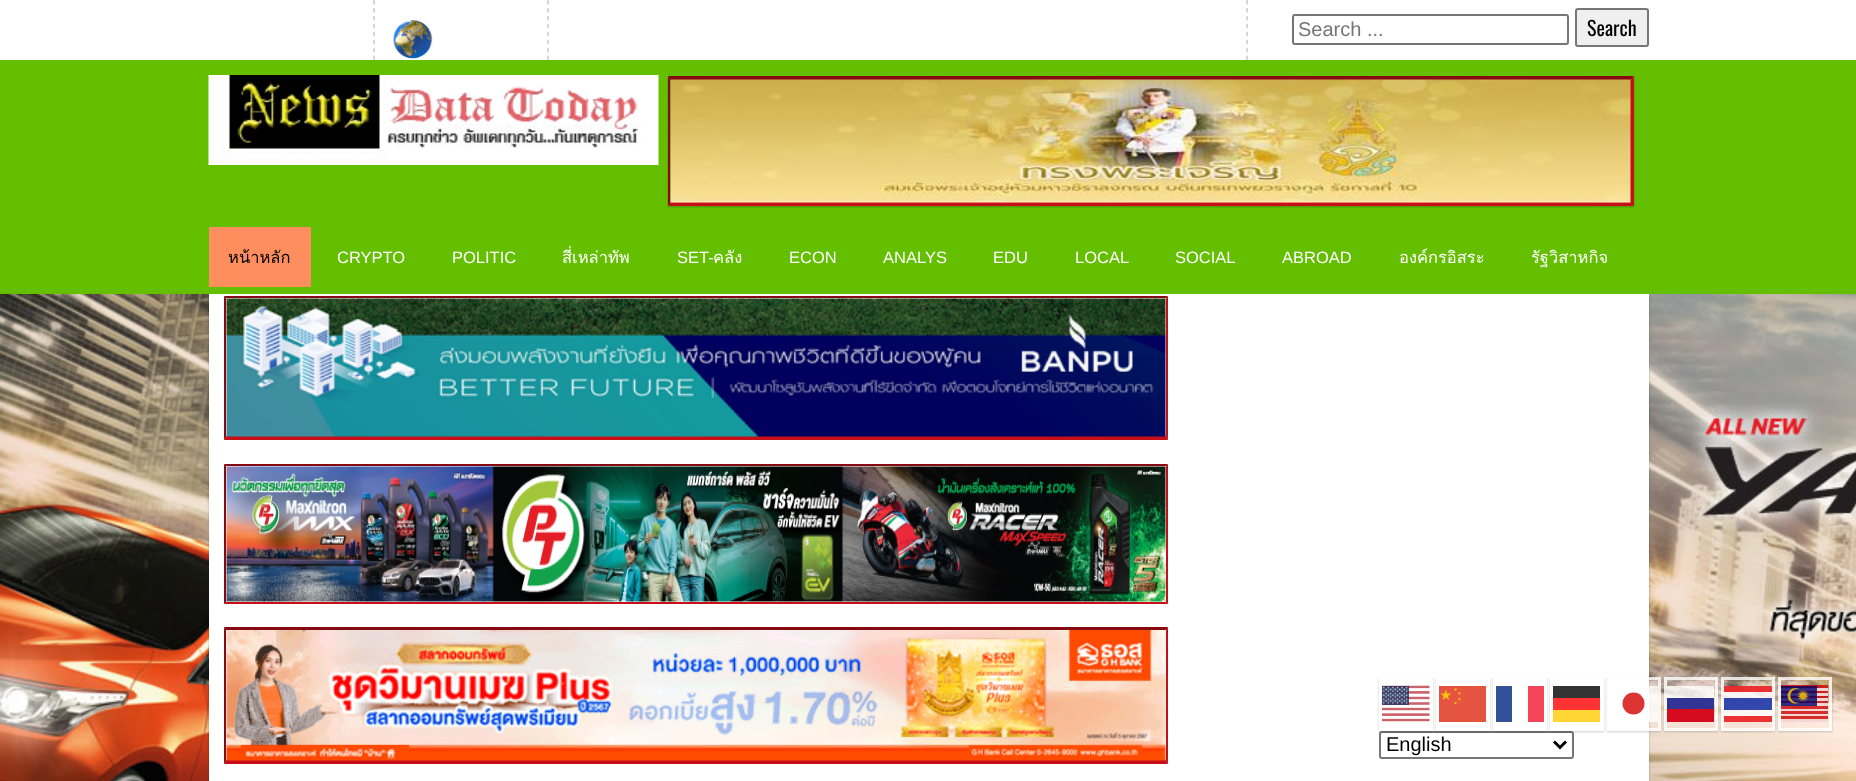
<?xml version="1.0" encoding="UTF-8"?>
<svg xmlns="http://www.w3.org/2000/svg" xmlns:xlink="http://www.w3.org/1999/xlink" width="1856" height="781">
  <defs>
    <clipPath id="clip1"><path d="M 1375 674 h 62 v 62 h -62 z m 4 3 h 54 v 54 h -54 z" clip-rule="evenodd" /></clipPath>
    <clipPath id="clip2"><path d="M 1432 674 h 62 v 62 h -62 z m 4 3 h 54 v 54 h -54 z" clip-rule="evenodd" /></clipPath>
    <clipPath id="clip3"><path d="M 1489 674 h 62 v 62 h -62 z m 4 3 h 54 v 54 h -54 z" clip-rule="evenodd" /></clipPath>
    <clipPath id="clip4"><path d="M 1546 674 h 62 v 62 h -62 z m 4 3 h 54 v 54 h -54 z" clip-rule="evenodd" /></clipPath>
    <clipPath id="clip5"><path d="M 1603 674 h 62 v 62 h -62 z m 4 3 h 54 v 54 h -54 z" clip-rule="evenodd" /></clipPath>
    <clipPath id="clip6"><path d="M 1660 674 h 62 v 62 h -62 z m 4 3 h 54 v 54 h -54 z" clip-rule="evenodd" /></clipPath>
    <clipPath id="clip7"><path d="M 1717 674 h 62 v 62 h -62 z m 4 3 h 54 v 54 h -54 z" clip-rule="evenodd" /></clipPath>
    <clipPath id="clip8"><path d="M 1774 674 h 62 v 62 h -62 z m 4 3 h 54 v 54 h -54 z" clip-rule="evenodd" /></clipPath>
  </defs>
  <rect width="100%" height="100%" fill="#ffffff" />
  <image x="0" y="294" width="1856" height="487" xlink:href="image1.png" />
  <path d="M 374 0 v 60" fill="none" stroke="#cccccc" stroke-width="1.5" stroke-dasharray="4.5 3.44" />
  <path d="M 548 0 v 60" fill="none" stroke="#cccccc" stroke-width="1.5" stroke-dasharray="4.5 3.44" />
  <image x="393" y="20" width="40" height="39" xlink:href="image2.png" />
  <path d="M 1247 0 v 60" fill="none" stroke="#cccccc" stroke-width="1.5" stroke-dasharray="4.5 3.44" />
  <rect x="1293" y="15" width="275" height="29" rx="2" fill="none" stroke="#767676" stroke-width="2" />
  <rect x="1576" y="9" width="72" height="37" rx="2" fill="#efefef" stroke="#767676" stroke-width="2" />
  <rect y="60" width="1856" height="234" fill="#64bf00" />
  <image x="208" y="75" width="451" height="90" xlink:href="image3.png" />
  <rect x="209" y="227" width="102" height="60" fill="#ff8e5f" />
  <rect x="668" y="78" width="966" height="129" fill="#000000" fill-opacity="0.25" filter="blur(1px)" />
  <path d="M 668 76 h 966 l -4 4 h -960 z" fill="#850a11" />
  <path d="M 1634 76 v 130 l -4 -4 v -122 z" fill="#c70f1a" />
  <path d="M 1634 206 h -966 l 2 -4 h 960 z" fill="#c70f1a" />
  <path d="M 668 206 v -130 l 2 4 v 122 z" fill="#850a11" />
  <image x="670" y="79" width="961" height="124" xlink:href="image4.png" />
  <rect x="209" y="296" width="1440" height="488" fill="#000000" fill-opacity="0.25" filter="blur(1px)" />
  <rect x="209" y="294" width="1440" height="487" fill="#ffffff" />
  <rect x="1380" y="732" width="193" height="26" rx="2" fill="none" stroke="#767676" stroke-width="2" />
  <g clip-path="url(#clip1)">
    <rect x="1379" y="678" width="54" height="54" fill="#000000" fill-opacity="0.2" filter="blur(1px)" />
  </g>
  <rect x="1380.5" y="678.5" width="51" height="51" fill="none" stroke="#ffffff" stroke-width="3" />
  <g clip-path="url(#clip2)">
    <rect x="1436" y="678" width="54" height="54" fill="#000000" fill-opacity="0.2" filter="blur(1px)" />
  </g>
  <rect x="1437.5" y="678.5" width="51" height="51" fill="none" stroke="#ffffff" stroke-width="3" />
  <g clip-path="url(#clip3)">
    <rect x="1493" y="678" width="54" height="54" fill="#000000" fill-opacity="0.2" filter="blur(1px)" />
  </g>
  <rect x="1494.5" y="678.5" width="51" height="51" fill="none" stroke="#ffffff" stroke-width="3" />
  <g clip-path="url(#clip4)">
    <rect x="1550" y="678" width="54" height="54" fill="#000000" fill-opacity="0.2" filter="blur(1px)" />
  </g>
  <rect x="1551.5" y="678.5" width="51" height="51" fill="none" stroke="#ffffff" stroke-width="3" />
  <g clip-path="url(#clip5)">
    <rect x="1607" y="678" width="54" height="54" fill="#000000" fill-opacity="0.2" filter="blur(1px)" />
  </g>
  <rect x="1608.5" y="678.5" width="51" height="51" fill="none" stroke="#ffffff" stroke-opacity="0.8" stroke-width="3" />
  <g clip-path="url(#clip6)">
    <rect x="1664" y="678" width="54" height="54" fill="#000000" fill-opacity="0.2" filter="blur(1px)" />
  </g>
  <rect x="1665.5" y="678.5" width="51" height="51" fill="none" stroke="#ffffff" stroke-opacity="0.8" stroke-width="3" />
  <g clip-path="url(#clip7)">
    <rect x="1721" y="678" width="54" height="54" fill="#000000" fill-opacity="0.2" filter="blur(1px)" />
  </g>
  <rect x="1722.5" y="678.5" width="51" height="51" fill="none" stroke="#ffffff" stroke-opacity="0.8" stroke-width="3" />
  <g clip-path="url(#clip8)">
    <rect x="1778" y="678" width="54" height="54" fill="#000000" fill-opacity="0.2" filter="blur(1px)" />
  </g>
  <rect x="1779.5" y="678.5" width="51" height="51" fill="none" stroke="#ffffff" stroke-opacity="0.8" stroke-width="3" />
  <image x="1382" y="685" width="48" height="37" xlink:href="image5.png" />
  <image x="1439" y="686" width="47" height="36" xlink:href="image6.png" />
  <rect x="1496" y="686" width="16" height="36" fill="#335199" />
  <rect x="1528" y="686" width="16" height="36" fill="#f54659" />
  <rect x="1553" y="686" width="47" height="12" fill="#333333" />
  <rect x="1649" y="686" width="9" height="36" fill="#ffffff" fill-opacity="0.8" />
  <rect x="1667" y="686" width="47" height="23" fill="#ffffff" fill-opacity="0.8" />
  <rect x="1724" y="686" width="48" height="36" fill="#ffffff" fill-opacity="0.8" />
  <image x="1781" y="685" width="47" height="37" xlink:href="image7.png" />
  <rect x="1553" y="698" width="47" height="12" fill="#ff3333" />
  <circle cx="1633.5" cy="703.5" r="11" fill="#dc3333" />
  <rect x="1667" y="698" width="47" height="11" fill="#01017e" fill-opacity="0.8" />
  <rect x="1724" y="698" width="48" height="12" fill="#001b9a" fill-opacity="0.8" />
  <path d="M 1724 686 h 48 v 6 h -48 z m 0 30 h 48 v 6 h -48 z" fill="#e70000" fill-opacity="0.8" fill-rule="evenodd" />
  <rect x="1553" y="710" width="47" height="12" fill="#ffd633" />
  <rect x="1667" y="709" width="47" height="13" fill="#d50b1f" />
  <path d="M 1554 741.5 l 6 6 l 6 -6" fill="none" stroke="#000000" stroke-width="3" />
  <path d="M 224 296 h 944 l -2 2 h -940 z" fill="#850a11" />
  <path d="M 1168 296 v 144 l -2 -4 v -138 z" fill="#c70f1a" />
  <path d="M 1168 440 h -944 l 2 -4 h 940 z" fill="#c70f1a" />
  <path d="M 224 440 v -144 l 2 2 v 138 z" fill="#850a11" />
  <image x="226" y="298" width="940" height="139" xlink:href="image8.png" />
  <path d="M 224 464 h 944 l -2 2 h -940 z" fill="#850a11" />
  <path d="M 1168 464 v 140 l -2 -2 v -136 z" fill="#c70f1a" />
  <path d="M 1168 604 h -944 l 2 -2 h 940 z" fill="#c70f1a" />
  <path d="M 224 604 v -140 l 2 2 v 136 z" fill="#850a11" />
  <image x="226" y="466" width="940" height="136" xlink:href="image9.png" />
  <path d="M 224 627 h 944 l -2 3 h -940 z" fill="#850a11" />
  <path d="M 1168 627 v 137 l -2 -4 v -130 z" fill="#c70f1a" />
  <path d="M 1168 764 h -944 l 2 -4 h 940 z" fill="#c70f1a" />
  <path d="M 224 764 v -137 l 2 3 v 130 z" fill="#850a11" />
  <image x="226" y="630" width="940" height="131" xlink:href="image10.png" />
  <text x="1298" y="36" style="font-family: Liberation Sans; font-size: 20px; fill: #757575">Search ...</text>
  <text x="1587" y="36" style="font-family: Oswald; font-size: 20px; fill: #000000">Search</text>
  <text x="228" y="263" style="font-family: Loma; font-size: 16.5px; fill: #000000">หน้าหลัก</text>
  <text x="337" y="263" style="font-family: Liberation Sans; font-size: 16.5px; fill: #ffffff">CRYPTO</text>
  <text x="452" y="263" style="font-family: Liberation Sans; font-size: 16.5px; fill: #ffffff">POLITIC</text>
  <text x="562" y="263" style="font-family: Loma; font-size: 16.5px; fill: #ffffff">สี่เหล่าทัพ</text>
  <text x="677" y="263" style="font-family: Liberation Sans; font-size: 16.5px; fill: #ffffff">SET-</text>
  <text x="713" y="263" style="font-family: Loma; font-size: 16.5px; fill: #ffffff">คลัง</text>
  <text x="789" y="263" style="font-family: Liberation Sans; font-size: 16.5px; fill: #ffffff">ECON</text>
  <text x="883" y="263" style="font-family: Liberation Sans; font-size: 16.5px; fill: #ffffff">ANALYS</text>
  <text x="993" y="263" style="font-family: Liberation Sans; font-size: 16.5px; fill: #ffffff">EDU</text>
  <text x="1075" y="263" style="font-family: Liberation Sans; font-size: 16.5px; fill: #ffffff">LOCAL</text>
  <text x="1175" y="263" style="font-family: Liberation Sans; font-size: 16.5px; fill: #ffffff">SOCIAL</text>
  <text x="1282" y="263" style="font-family: Liberation Sans; font-size: 16.5px; fill: #ffffff">ABROAD</text>
  <text x="1399" y="263" style="font-family: Loma; font-size: 16.5px; fill: #ffffff">องค์กรอิสระ</text>
  <text x="1531" y="263" style="font-family: Loma; font-size: 16.5px; fill: #ffffff">รัฐวิสาหกิจ</text>
  <text x="1386" y="751" style="font-family: Liberation Sans; font-size: 20px; fill: #000000">English</text>
</svg>
